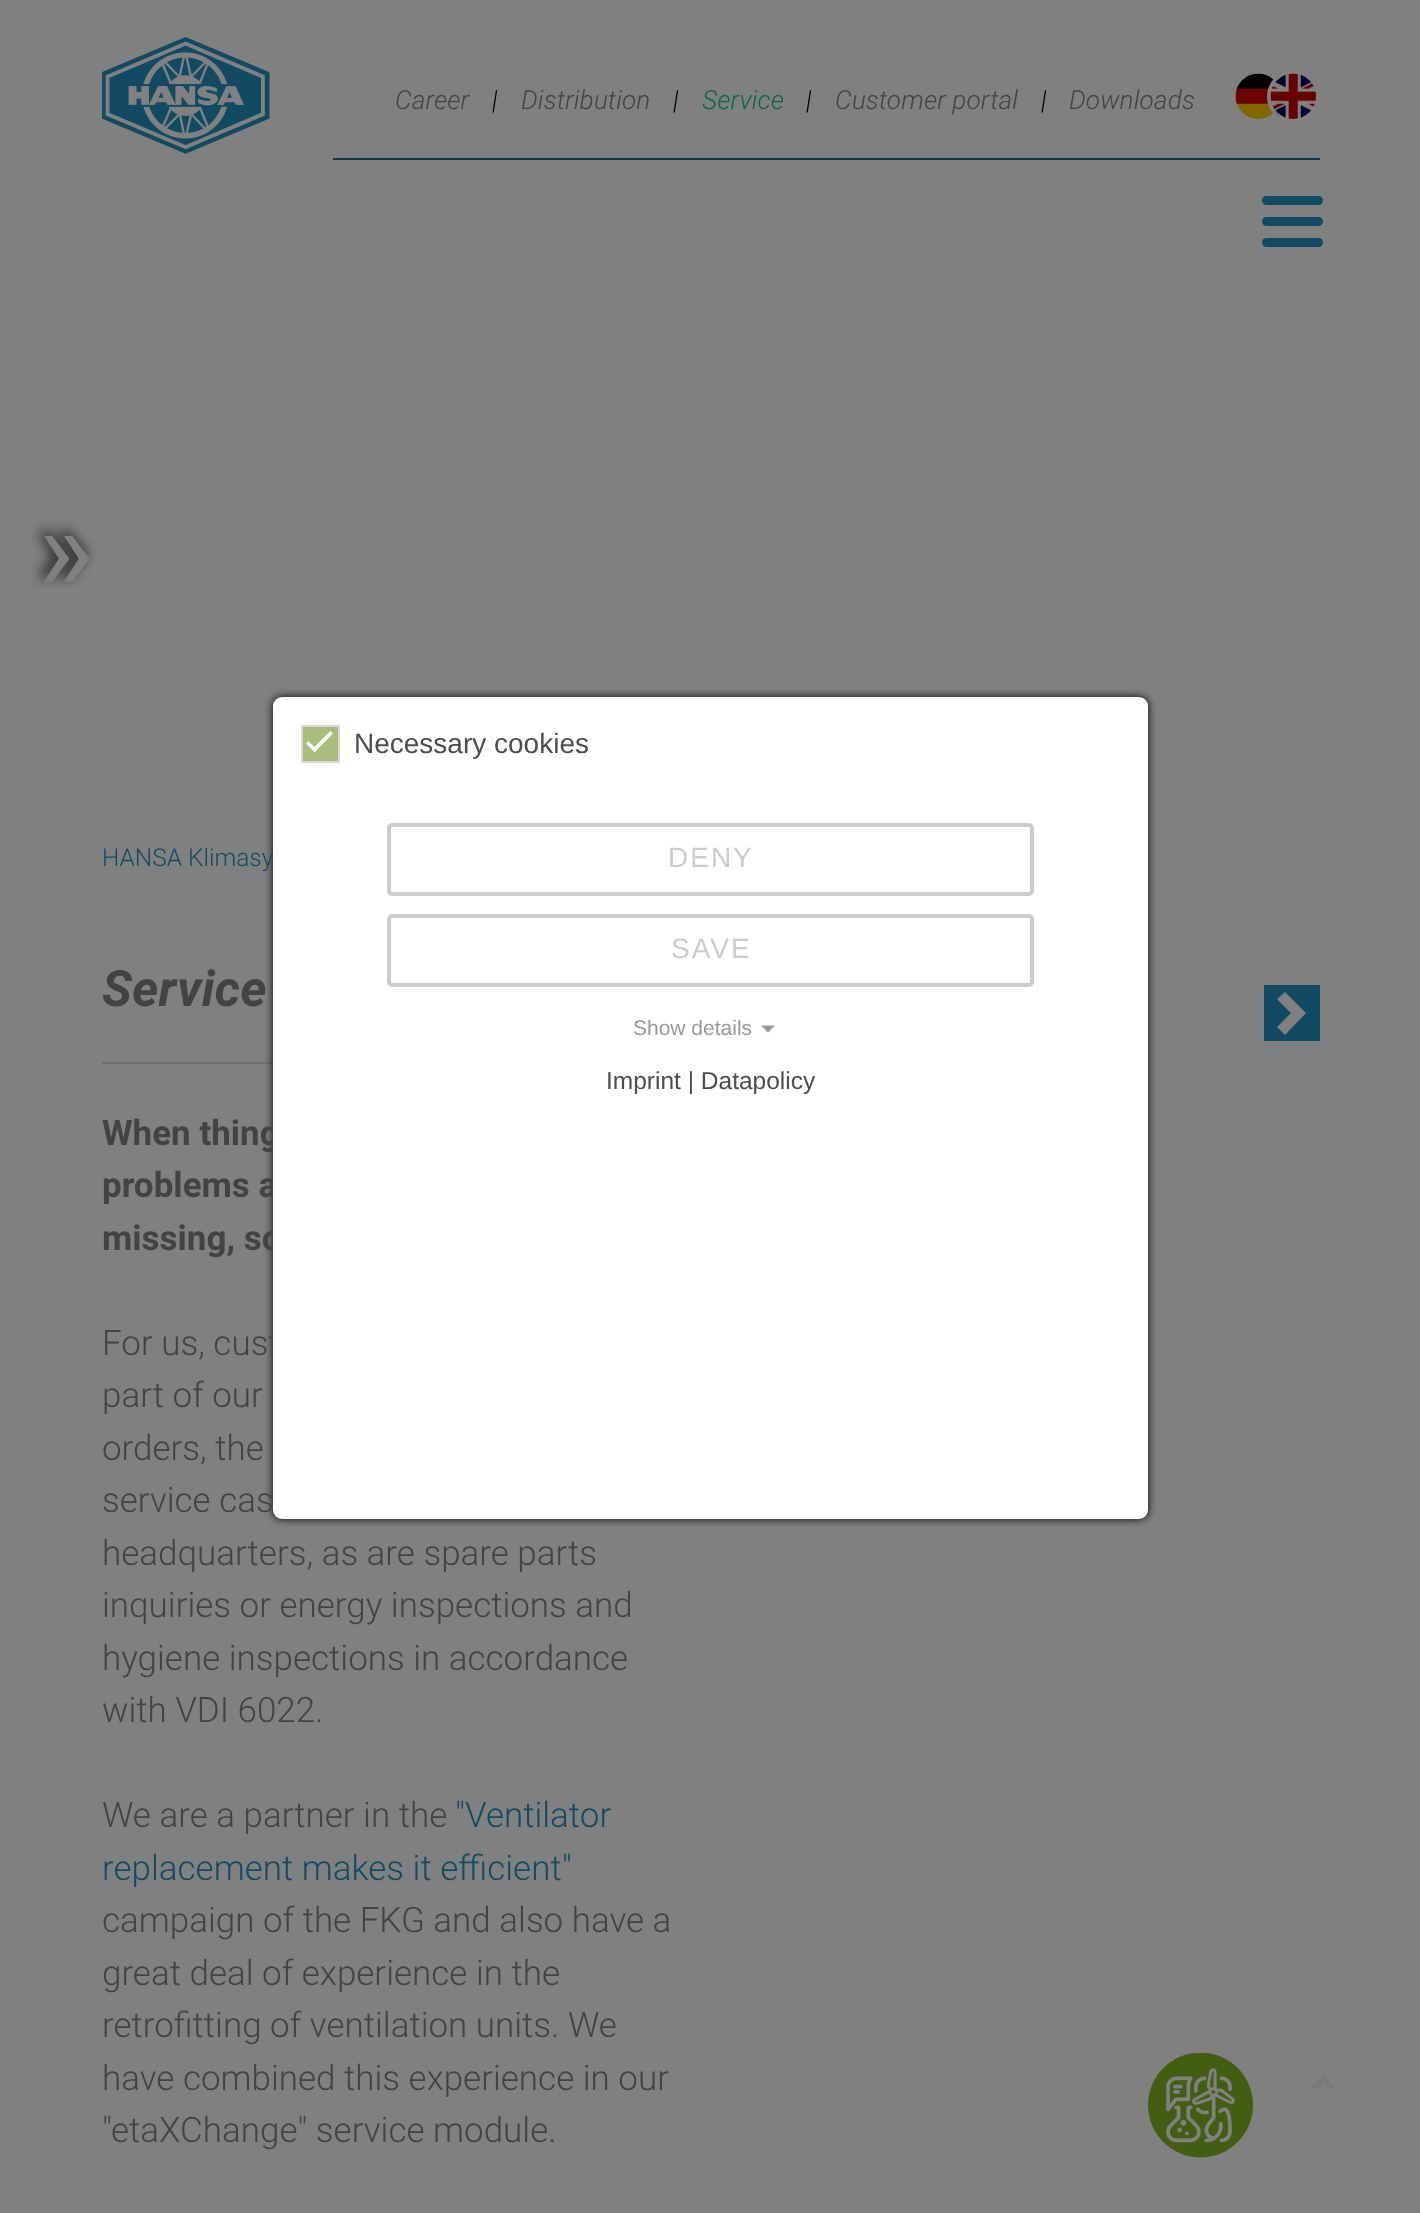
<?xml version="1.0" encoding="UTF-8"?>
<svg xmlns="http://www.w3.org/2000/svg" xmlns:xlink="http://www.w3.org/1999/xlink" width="1420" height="2213">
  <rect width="100%" height="100%" fill="#808080" />
  <image x="102" y="37" width="168" height="117" xlink:href="image1.png" />
  <rect x="1262" y="196" width="61" height="9" rx="4.5" fill="#124a64" />
  <rect x="1262" y="217" width="61" height="9" rx="4.5" fill="#124a64" />
  <rect x="1262" y="238" width="61" height="9" rx="4.5" fill="#124a64" />
  <rect x="333" y="158" width="987" height="2" fill="#0f374b" />
  <image x="1235" y="73" width="41" height="46" xlink:href="image2.png" />
  <circle cx="1293.5" cy="96.5" r="24.5" fill="none" stroke="#808080" stroke-width="4" />
  <image x="1270" y="73" width="46" height="46" xlink:href="image3.png" />
  <image x="31" y="521" width="65" height="67" xlink:href="image4.png" />
  <rect x="102" y="1062" width="171" height="2" fill="#6f7173" />
  <rect x="1264" y="985" width="56" height="56" fill="#124a64" />
  <path d="M 1306 1013 l -21 -21 l -8 7 l 14 14 l -14 14 l 8 8 z" fill="#808080" />
  <rect x="273" y="697" width="875" height="822" rx="9" fill="#000000" filter="blur(4.5px)" />
  <image x="1148" y="2053" width="105" height="105" xlink:href="image5.png" />
  <image x="1312" y="2075" width="22" height="15" xlink:href="image6.png" />
  <text x="395" y="109" style="font-family: Roboto; font-size: 26.25px; font-weight: 300; font-style: italic; fill: #434345">Career</text>
  <text x="492" y="109" style="font-family: Roboto; font-size: 26.25px; font-weight: 300; font-style: italic; fill: #000000">|</text>
  <text x="521" y="109" style="font-family: Roboto; font-size: 26.25px; font-weight: 300; font-style: italic; fill: #434345">Distribution</text>
  <text x="673" y="109" style="font-family: Roboto; font-size: 26.25px; font-weight: 300; font-style: italic; fill: #000000">|</text>
  <text x="702" y="109" style="font-family: Roboto; font-size: 26.25px; font-weight: 300; font-style: italic; fill: #0b6646">Service</text>
  <text x="806" y="109" style="font-family: Roboto; font-size: 26.25px; font-weight: 300; font-style: italic; fill: #000000">|</text>
  <text x="835" y="109" style="font-family: Roboto; font-size: 26.25px; font-weight: 300; font-style: italic; fill: #434345">Customer portal</text>
  <text x="1041" y="109" style="font-family: Roboto; font-size: 26.25px; font-weight: 300; font-style: italic; fill: #000000">|</text>
  <text x="1069" y="109" style="font-family: Roboto; font-size: 26.25px; font-weight: 300; font-style: italic; fill: #434345">Downloads</text>
  <text x="102" y="866" style="font-family: Roboto; font-size: 24.5px; font-weight: 300; fill: #124a64">HANSA Klimasy</text>
  <text x="102" y="1006" style="font-family: Roboto; font-size: 50px; font-weight: bold; font-style: italic; fill: #434345">Service</text>
  <text x="102" y="1145" style="font-family: Roboto; font-size: 35px; font-weight: bold; fill: #434345">When thing</text>
  <text x="102" y="1197" style="font-family: Roboto; font-size: 35px; font-weight: bold; fill: #434345">problems a</text>
  <text x="102" y="1250" style="font-family: Roboto; font-size: 35px; font-weight: bold; fill: #434345">missing, so</text>
  <text x="102" y="1355" style="font-family: Roboto; font-size: 35px; font-weight: 300; fill: #434345">For us, cust</text>
  <text x="102" y="1407" style="font-family: Roboto; font-size: 35px; font-weight: 300; fill: #434345">part of our</text>
  <text x="102" y="1460" style="font-family: Roboto; font-size: 35px; font-weight: 300; fill: #434345">orders, the</text>
  <text x="102" y="1512" style="font-family: Roboto; font-size: 35px; font-weight: 300; fill: #434345">service cas</text>
  <text x="102" y="1565" style="font-family: Roboto; font-size: 35px; font-weight: 300; fill: #434345">headquarters, as are spare parts</text>
  <text x="102" y="1617" style="font-family: Roboto; font-size: 35px; font-weight: 300; fill: #434345">inquiries or energy inspections and</text>
  <text x="102" y="1670" style="font-family: Roboto; font-size: 35px; font-weight: 300; fill: #434345">hygiene inspections in accordance</text>
  <text x="102" y="1722" style="font-family: Roboto; font-size: 35px; font-weight: 300; fill: #434345">with VDI 6022.</text>
  <text x="102" y="1827" style="font-family: Roboto; font-size: 35px; font-weight: 300; fill: #434345">We are a partner in the</text>
  <text x="455" y="1827" style="font-family: Roboto; font-size: 35px; font-weight: 300; fill: #124a64">"Ventilator</text>
  <text x="102" y="1880" style="font-family: Roboto; font-size: 35px; font-weight: 300; fill: #124a64">replacement makes it efficient"</text>
  <text x="102" y="1932" style="font-family: Roboto; font-size: 35px; font-weight: 300; fill: #434345">campaign of the FKG and also have a</text>
  <text x="102" y="1985" style="font-family: Roboto; font-size: 35px; font-weight: 300; fill: #434345">great deal of experience in the</text>
  <text x="102" y="2037" style="font-family: Roboto; font-size: 35px; font-weight: 300; fill: #434345">retrofitting of ventilation units. We</text>
  <text x="102" y="2090" style="font-family: Roboto; font-size: 35px; font-weight: 300; fill: #434345">have combined this experience in our</text>
  <text x="102" y="2142" style="font-family: Roboto; font-size: 35px; font-weight: 300; fill: #434345">"etaXChange" service module.</text>
  <rect x="273" y="697" width="875" height="822" rx="9" fill="#ffffff" />
  <rect x="302" y="726" width="37" height="36" fill="#a9be7a" stroke="#d9d9d9" stroke-width="2" />
  <path d="M 330.5 731 l 2.5 2.5 l -18.5 18.5 l -2.5 -2.5 z" fill="#ffffff" />
  <path d="M 308 741 l 9 8.5 l -2.5 2.5 l -8.5 -8.5 z" fill="#ffffff" />
  <text x="354" y="753" style="font-family: Liberation Sans; font-size: 28px; fill: #4d4d4d">Necessary cookies</text>
  <rect x="389" y="825" width="643" height="69" rx="3" fill="none" stroke="#cccccc" stroke-width="4" />
  <text x="668" y="867" style="font-family: Liberation Sans; font-size: 28px; letter-spacing: 2px; fill: #cccccc">DENY</text>
  <rect x="389" y="916" width="643" height="69" rx="3" fill="none" stroke="#cccccc" stroke-width="4" />
  <text x="671" y="958" style="font-family: Liberation Sans; font-size: 28px; letter-spacing: 2px; fill: #cccccc">SAVE</text>
  <text x="633" y="1035" style="font-family: Liberation Sans; font-size: 21px; fill: #999999">Show details</text>
  <path d="M 761 1025.5 h 14 l -7 7 z" fill="#999999" />
  <text x="606" y="1089" style="font-family: Liberation Sans; font-size: 24.5px; fill: #4d4d4d">Imprint | Datapolicy</text>
</svg>
